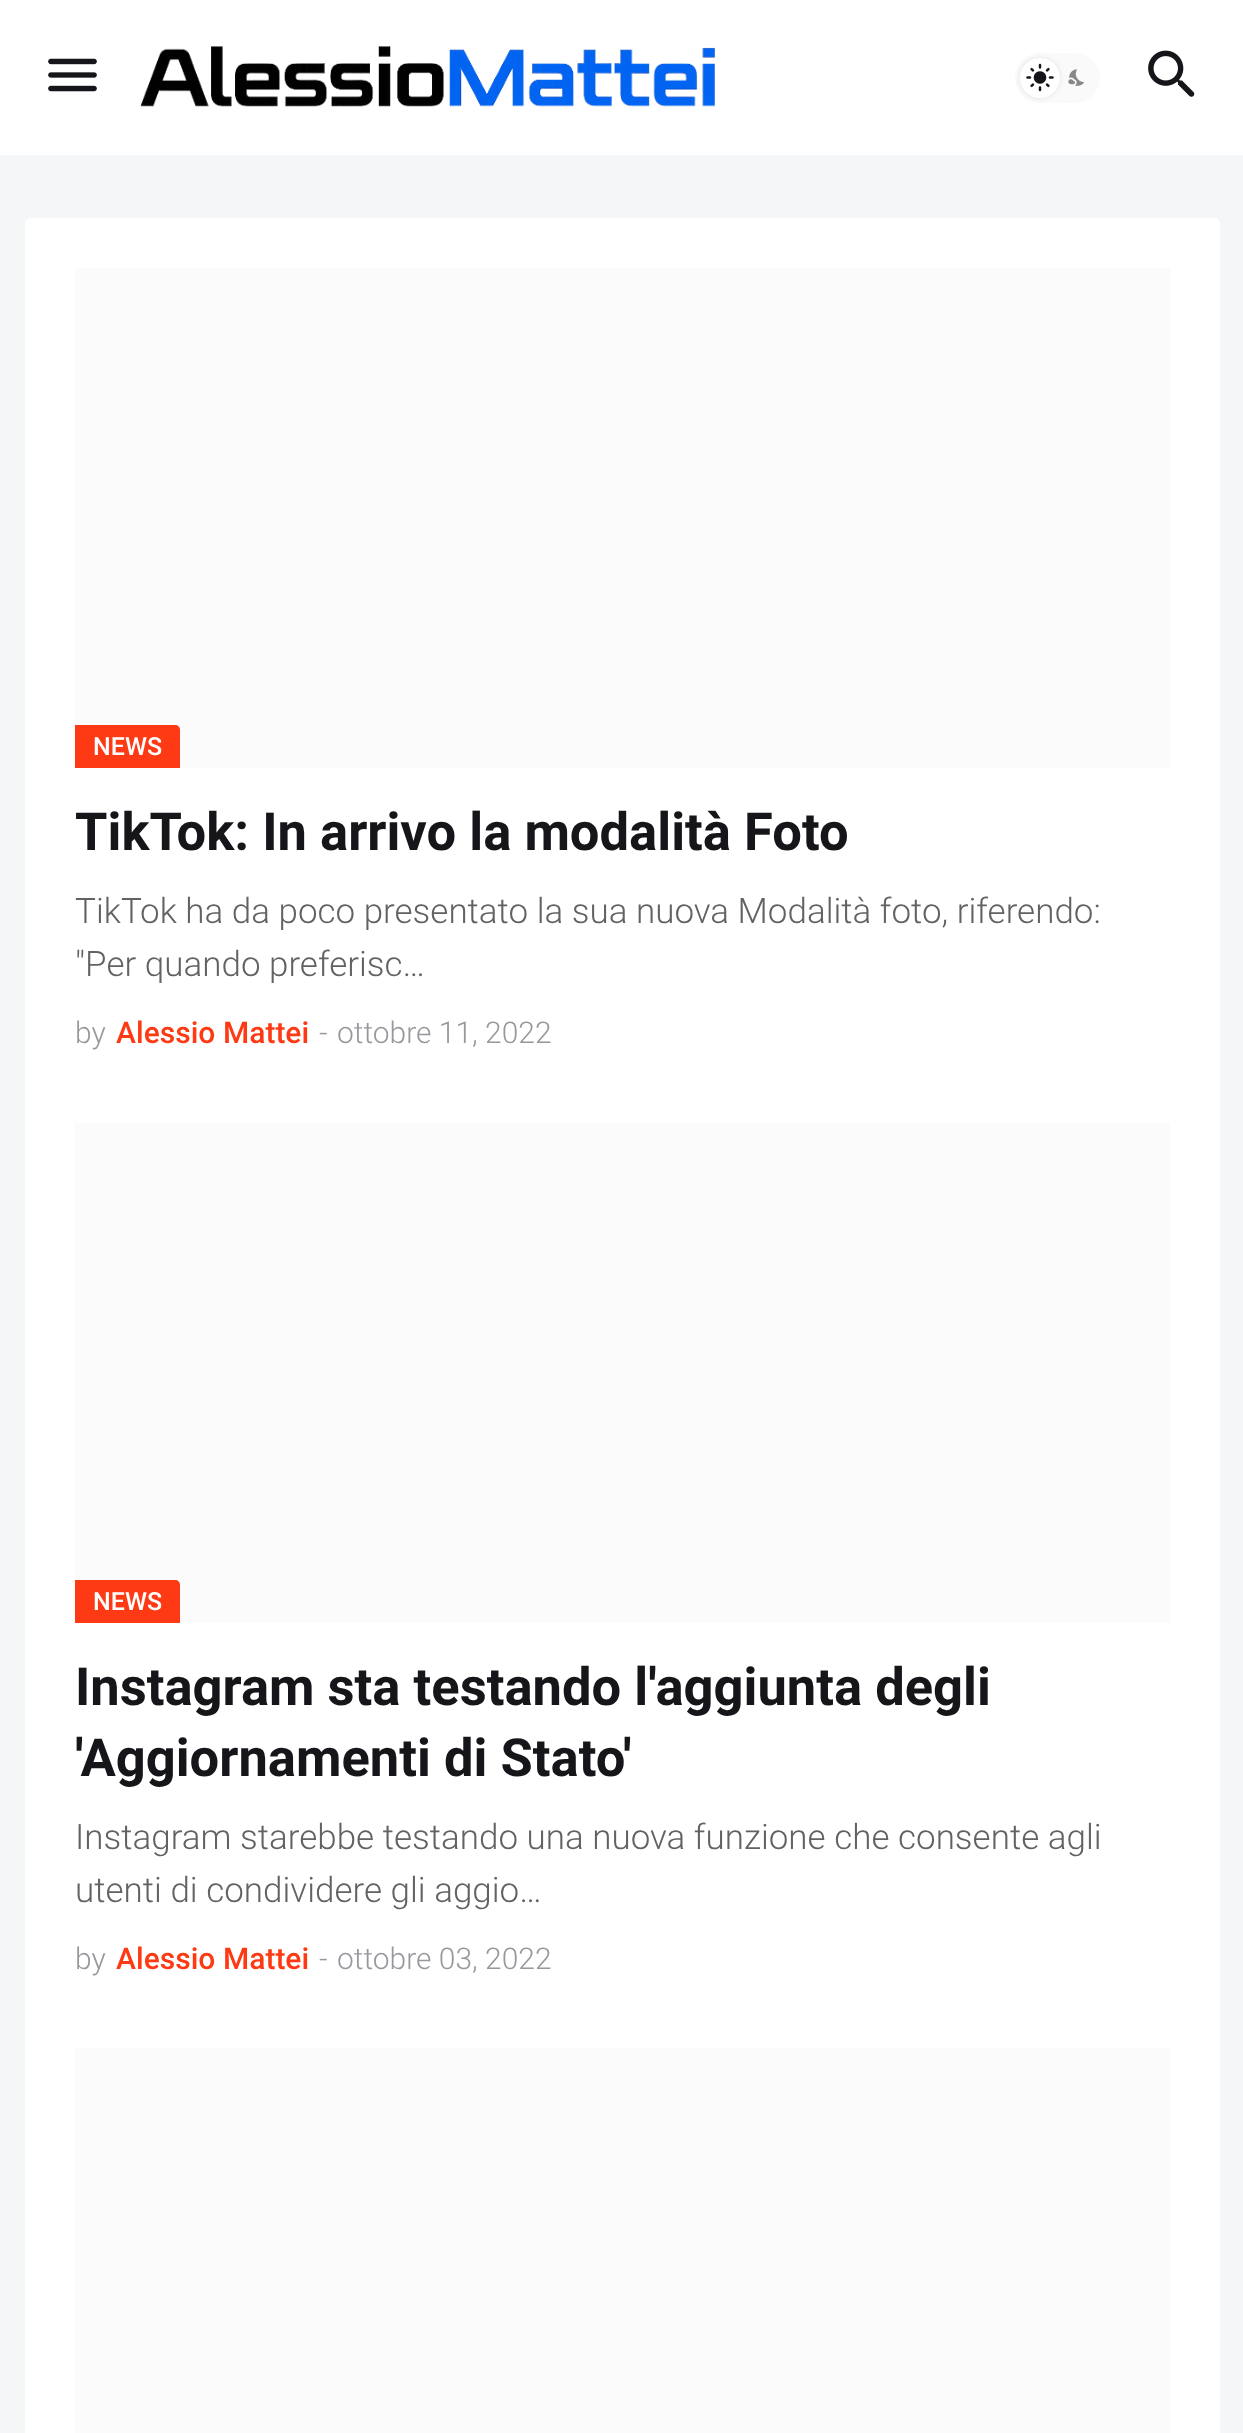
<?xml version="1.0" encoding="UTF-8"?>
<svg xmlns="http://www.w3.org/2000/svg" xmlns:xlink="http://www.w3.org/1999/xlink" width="1243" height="2433">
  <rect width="100%" height="100%" fill="#f5f6f7" />
  <rect width="1243" height="155" fill="#ffffff" />
  <image x="48" y="58" width="49" height="34" xlink:href="image1.png" />
  <image x="140" y="46" width="575" height="61" xlink:href="image2.png" />
  <rect x="1015" y="53" width="85" height="50" rx="25" fill="#fafafa" />
  <image x="1068" y="69" width="16" height="17" xlink:href="image4.png" />
  <rect x="1020" y="58" width="40" height="40" rx="20" fill="#000000" fill-opacity="0.1" filter="blur(2.5px)" />
  <circle cx="1040" cy="78" r="20" fill="#ffffff" />
  <image x="1026" y="63" width="28" height="29" xlink:href="image3.png" />
  <image x="1148" y="50" width="47" height="47" xlink:href="image5.png" />
  <rect x="25" y="218" width="1195" height="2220" rx="5" fill="#ffffff" />
  <rect x="75" y="268" width="1095" height="500" fill="#fbfbfb" />
  <path d="M 75 725 h 100 c 3 0 5 2 5 5 v 38 h -105 z" fill="#fd3a13" />
  <rect x="75" y="1123" width="1095" height="500" fill="#fbfbfb" />
  <path d="M 75 1580 h 100 c 3 0 5 2 5 5 v 38 h -105 z" fill="#fd3a13" />
  <rect x="75" y="2048" width="1095" height="385" fill="#fbfbfb" />
  <text x="93" y="755" style="font-family: Roboto; font-size: 25px; font-weight: 500; fill: #ffffff">NEWS</text>
  <text x="75" y="850" style="font-family: Roboto; font-size: 52.5px; font-weight: bold; fill: #16161a">TikTok: In arrivo la modalità Foto</text>
  <text x="75" y="923" style="font-family: Roboto; font-size: 35px; font-weight: 300; fill: #626262">TikTok ha da poco presentato la sua nuova Modalità foto, riferendo:</text>
  <text x="75" y="976" style="font-family: Roboto; font-size: 35px; font-weight: 300; fill: #626262">"Per quando preferisc…</text>
  <text x="75" y="1043" style="font-family: Roboto; font-size: 30px; font-weight: 300; fill: #97979d">by</text>
  <text x="116" y="1043" style="font-family: Roboto; font-size: 30px; font-weight: 500; fill: #fd3a13">Alessio Mattei</text>
  <text x="319" y="1043" style="font-family: Roboto; font-size: 30px; font-weight: 300; fill: #97979d">-</text>
  <text x="337" y="1043" style="font-family: Roboto; font-size: 30px; font-weight: 300; fill: #97979d">ottobre 11, 2022</text>
  <text x="93" y="1610" style="font-family: Roboto; font-size: 25px; font-weight: 500; fill: #ffffff">NEWS</text>
  <text x="75" y="1705" style="font-family: Roboto; font-size: 52.5px; font-weight: bold; fill: #16161a">Instagram sta testando l'aggiunta degli</text>
  <text x="75" y="1776" style="font-family: Roboto; font-size: 52.5px; font-weight: bold; fill: #16161a">'Aggiornamenti di Stato'</text>
  <text x="75" y="1849" style="font-family: Roboto; font-size: 35px; font-weight: 300; fill: #626262">Instagram starebbe testando una nuova funzione che consente agli</text>
  <text x="75" y="1902" style="font-family: Roboto; font-size: 35px; font-weight: 300; fill: #626262">utenti di condividere gli aggio…</text>
  <text x="75" y="1969" style="font-family: Roboto; font-size: 30px; font-weight: 300; fill: #97979d">by</text>
  <text x="116" y="1969" style="font-family: Roboto; font-size: 30px; font-weight: 500; fill: #fd3a13">Alessio Mattei</text>
  <text x="319" y="1969" style="font-family: Roboto; font-size: 30px; font-weight: 300; fill: #97979d">-</text>
  <text x="337" y="1969" style="font-family: Roboto; font-size: 30px; font-weight: 300; fill: #97979d">ottobre 03, 2022</text>
</svg>
